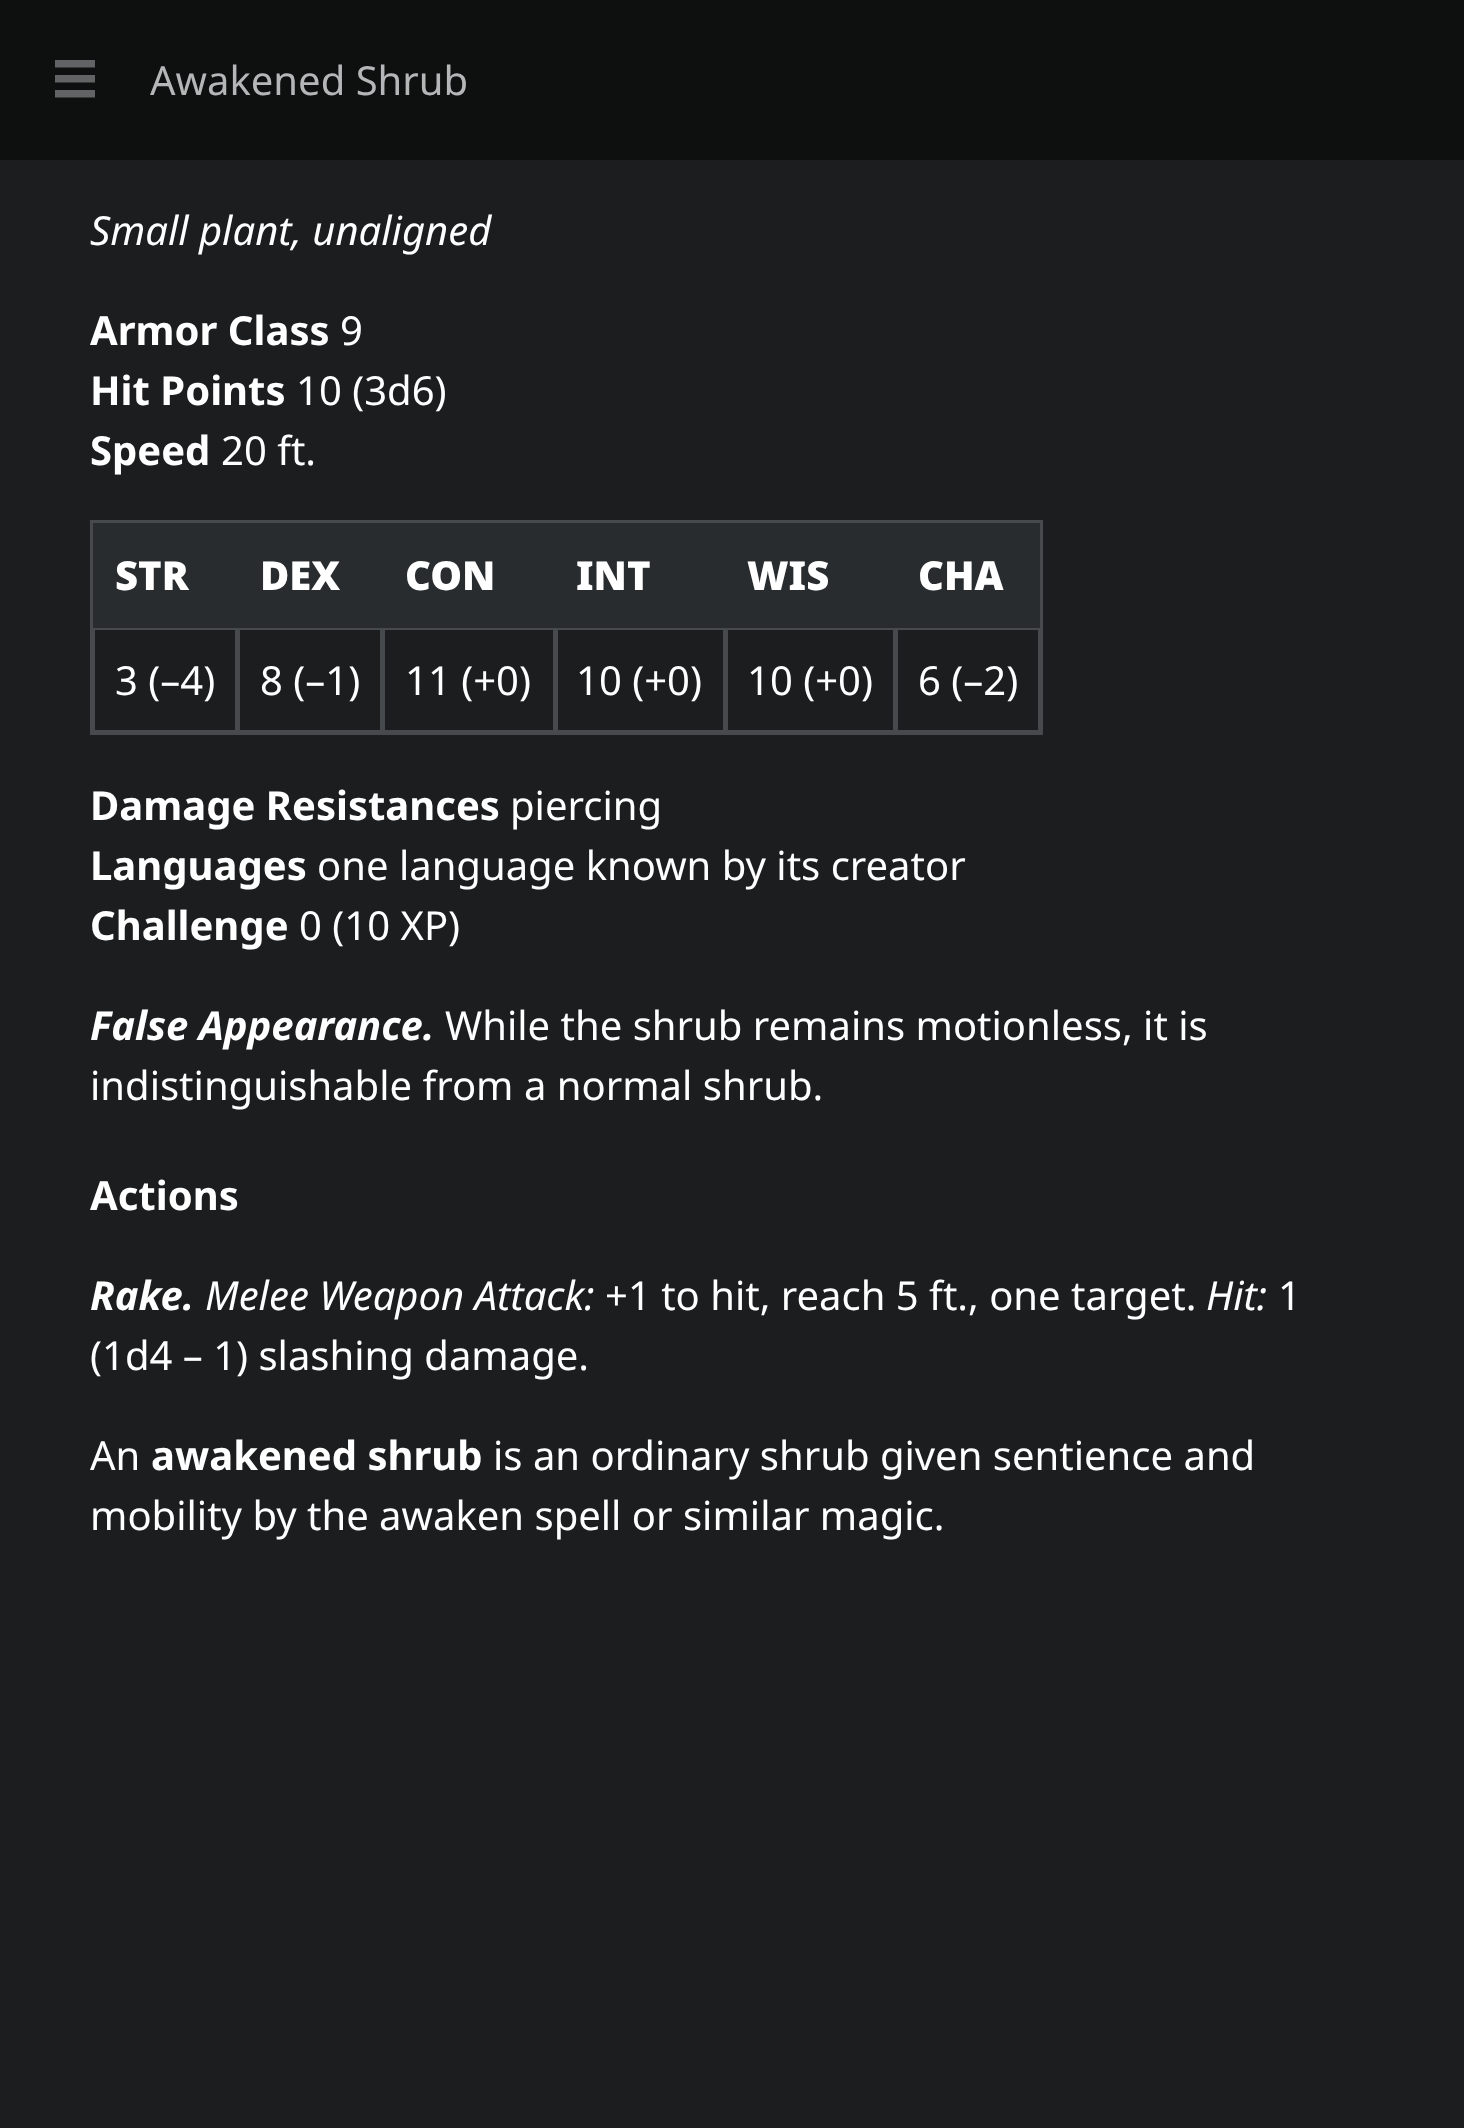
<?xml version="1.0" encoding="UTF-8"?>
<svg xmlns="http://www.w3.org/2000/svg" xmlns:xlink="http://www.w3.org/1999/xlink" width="1464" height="2128">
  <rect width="100%" height="100%" fill="#1b1d1f" />
  <rect width="1464" height="160" fill="#0e0f0f" />
  <path d="M 95 90 v 7.5 h -40 v -7.5 z m 0 -15 v 7.5 h -40 v -7.5 z m 0 -15 v 7.5 h -40 v -7.5 z" fill="#616364" fill-rule="evenodd" />
  <rect x="90" y="520" width="953" height="3" fill="#464a4d" />
  <rect x="893" y="628" width="150" height="2" fill="#464a4d" />
  <rect x="1038" y="625" width="5" height="110" fill="#464a4d" />
  <rect x="893" y="730" width="150" height="5" fill="#464a4d" />
  <rect x="893" y="625" width="5" height="110" fill="#464a4d" />
  <rect x="723" y="628" width="175" height="2" fill="#464a4d" />
  <rect x="723" y="730" width="175" height="5" fill="#464a4d" />
  <rect x="723" y="625" width="5" height="110" fill="#464a4d" />
  <rect x="553" y="628" width="175" height="2" fill="#464a4d" />
  <rect x="553" y="730" width="175" height="5" fill="#464a4d" />
  <rect x="553" y="625" width="5" height="110" fill="#464a4d" />
  <rect x="380" y="628" width="178" height="2" fill="#464a4d" />
  <rect x="380" y="730" width="178" height="5" fill="#464a4d" />
  <rect x="380" y="625" width="5" height="110" fill="#464a4d" />
  <rect x="235" y="628" width="150" height="2" fill="#464a4d" />
  <rect x="235" y="730" width="150" height="5" fill="#464a4d" />
  <rect x="235" y="625" width="5" height="110" fill="#464a4d" />
  <rect x="90" y="628" width="150" height="2" fill="#464a4d" />
  <rect x="90" y="730" width="150" height="5" fill="#464a4d" />
  <rect x="90" y="625" width="5" height="110" fill="#464a4d" />
  <rect x="90" y="520" width="5" height="110" fill="#464a4d" />
  <rect x="1038" y="520" width="5" height="110" fill="#464a4d" />
  <rect x="93" y="523" width="947" height="105" fill="#292c2e" />
  <text x="150" y="95" style="font-family: Noto Sans; font-size: 40px; fill: #b4b6b8">Awakened Shrub</text>
  <text x="90" y="245" style="font-family: Noto Sans; font-size: 40px; font-style: italic; fill: #ffffff">Small plant, unaligned</text>
  <text x="90" y="345" style="font-family: Noto Sans; font-size: 40px; font-weight: bold; fill: #ffffff">Armor Class</text>
  <text x="340" y="345" style="font-family: Noto Sans; font-size: 40px; fill: #ffffff">9</text>
  <text x="90" y="405" style="font-family: Noto Sans; font-size: 40px; font-weight: bold; fill: #ffffff">Hit Points</text>
  <text x="296" y="405" style="font-family: Noto Sans; font-size: 40px; fill: #ffffff">10 (3d6)</text>
  <text x="90" y="465" style="font-family: Noto Sans; font-size: 40px; font-weight: bold; fill: #ffffff">Speed</text>
  <text x="221" y="465" style="font-family: Noto Sans; font-size: 40px; fill: #ffffff">20 ft.</text>
  <text x="115" y="590" style="font-family: Noto Sans; font-size: 40px; font-weight: 900; fill: #ffffff">STR</text>
  <text x="260" y="590" style="font-family: Noto Sans; font-size: 40px; font-weight: 900; fill: #ffffff">DEX</text>
  <text x="405" y="590" style="font-family: Noto Sans; font-size: 40px; font-weight: 900; fill: #ffffff">CON</text>
  <text x="576" y="590" style="font-family: Noto Sans; font-size: 40px; font-weight: 900; fill: #ffffff">INT</text>
  <text x="747" y="590" style="font-family: Noto Sans; font-size: 40px; font-weight: 900; fill: #ffffff">WIS</text>
  <text x="918" y="590" style="font-family: Noto Sans; font-size: 40px; font-weight: 900; fill: #ffffff">CHA</text>
  <text x="115" y="695" style="font-family: Noto Sans; font-size: 40px; fill: #ffffff">3 (–4)</text>
  <text x="260" y="695" style="font-family: Noto Sans; font-size: 40px; fill: #ffffff">8 (–1)</text>
  <text x="405" y="695" style="font-family: Noto Sans; font-size: 40px; fill: #ffffff">11 (+0)</text>
  <text x="576" y="695" style="font-family: Noto Sans; font-size: 40px; fill: #ffffff">10 (+0)</text>
  <text x="747" y="695" style="font-family: Noto Sans; font-size: 40px; fill: #ffffff">10 (+0)</text>
  <text x="918" y="695" style="font-family: Noto Sans; font-size: 40px; fill: #ffffff">6 (–2)</text>
  <text x="90" y="820" style="font-family: Noto Sans; font-size: 40px; font-weight: bold; fill: #ffffff">Damage Resistances</text>
  <text x="510" y="820" style="font-family: Noto Sans; font-size: 40px; fill: #ffffff">piercing</text>
  <text x="90" y="880" style="font-family: Noto Sans; font-size: 40px; font-weight: bold; fill: #ffffff">Languages</text>
  <text x="317" y="880" style="font-family: Noto Sans; font-size: 40px; fill: #ffffff">one language known by its creator</text>
  <text x="90" y="940" style="font-family: Noto Sans; font-size: 40px; font-weight: bold; fill: #ffffff">Challenge</text>
  <text x="299" y="940" style="font-family: Noto Sans; font-size: 40px; fill: #ffffff">0 (10 XP)</text>
  <text x="90" y="1040" style="font-family: Noto Sans; font-size: 40px; font-weight: bold; font-style: italic; fill: #ffffff">False Appearance.</text>
  <text x="445" y="1040" style="font-family: Noto Sans; font-size: 40px; fill: #ffffff">While the shrub remains motionless, it is</text>
  <text x="90" y="1100" style="font-family: Noto Sans; font-size: 40px; fill: #ffffff">indistinguishable from a normal shrub.</text>
  <text x="90" y="1210" style="font-family: Noto Sans; font-size: 40px; font-weight: bold; fill: #ffffff">Actions</text>
  <text x="90" y="1310" style="font-family: Noto Sans; font-size: 40px; font-weight: bold; font-style: italic; fill: #ffffff">Rake.</text>
  <text x="205" y="1310" style="font-family: Noto Sans; font-size: 40px; font-style: italic; fill: #ffffff">Melee Weapon Attack:</text>
  <text x="605" y="1310" style="font-family: Noto Sans; font-size: 40px; fill: #ffffff">+1 to hit, reach 5 ft., one target.</text>
  <text x="1206" y="1310" style="font-family: Noto Sans; font-size: 40px; font-style: italic; fill: #ffffff">Hit:</text>
  <text x="1278" y="1310" style="font-family: Noto Sans; font-size: 40px; fill: #ffffff">1</text>
  <text x="90" y="1370" style="font-family: Noto Sans; font-size: 40px; fill: #ffffff">(1d4 – 1) slashing damage.</text>
  <text x="90" y="1470" style="font-family: Noto Sans; font-size: 40px; fill: #ffffff">An</text>
  <text x="151" y="1470" style="font-family: Noto Sans; font-size: 40px; font-weight: bold; fill: #ffffff">awakened shrub</text>
  <text x="493" y="1470" style="font-family: Noto Sans; font-size: 40px; fill: #ffffff">is an ordinary shrub given sentience and</text>
  <text x="90" y="1530" style="font-family: Noto Sans; font-size: 40px; fill: #ffffff">mobility by the awaken spell or similar magic.</text>
</svg>
